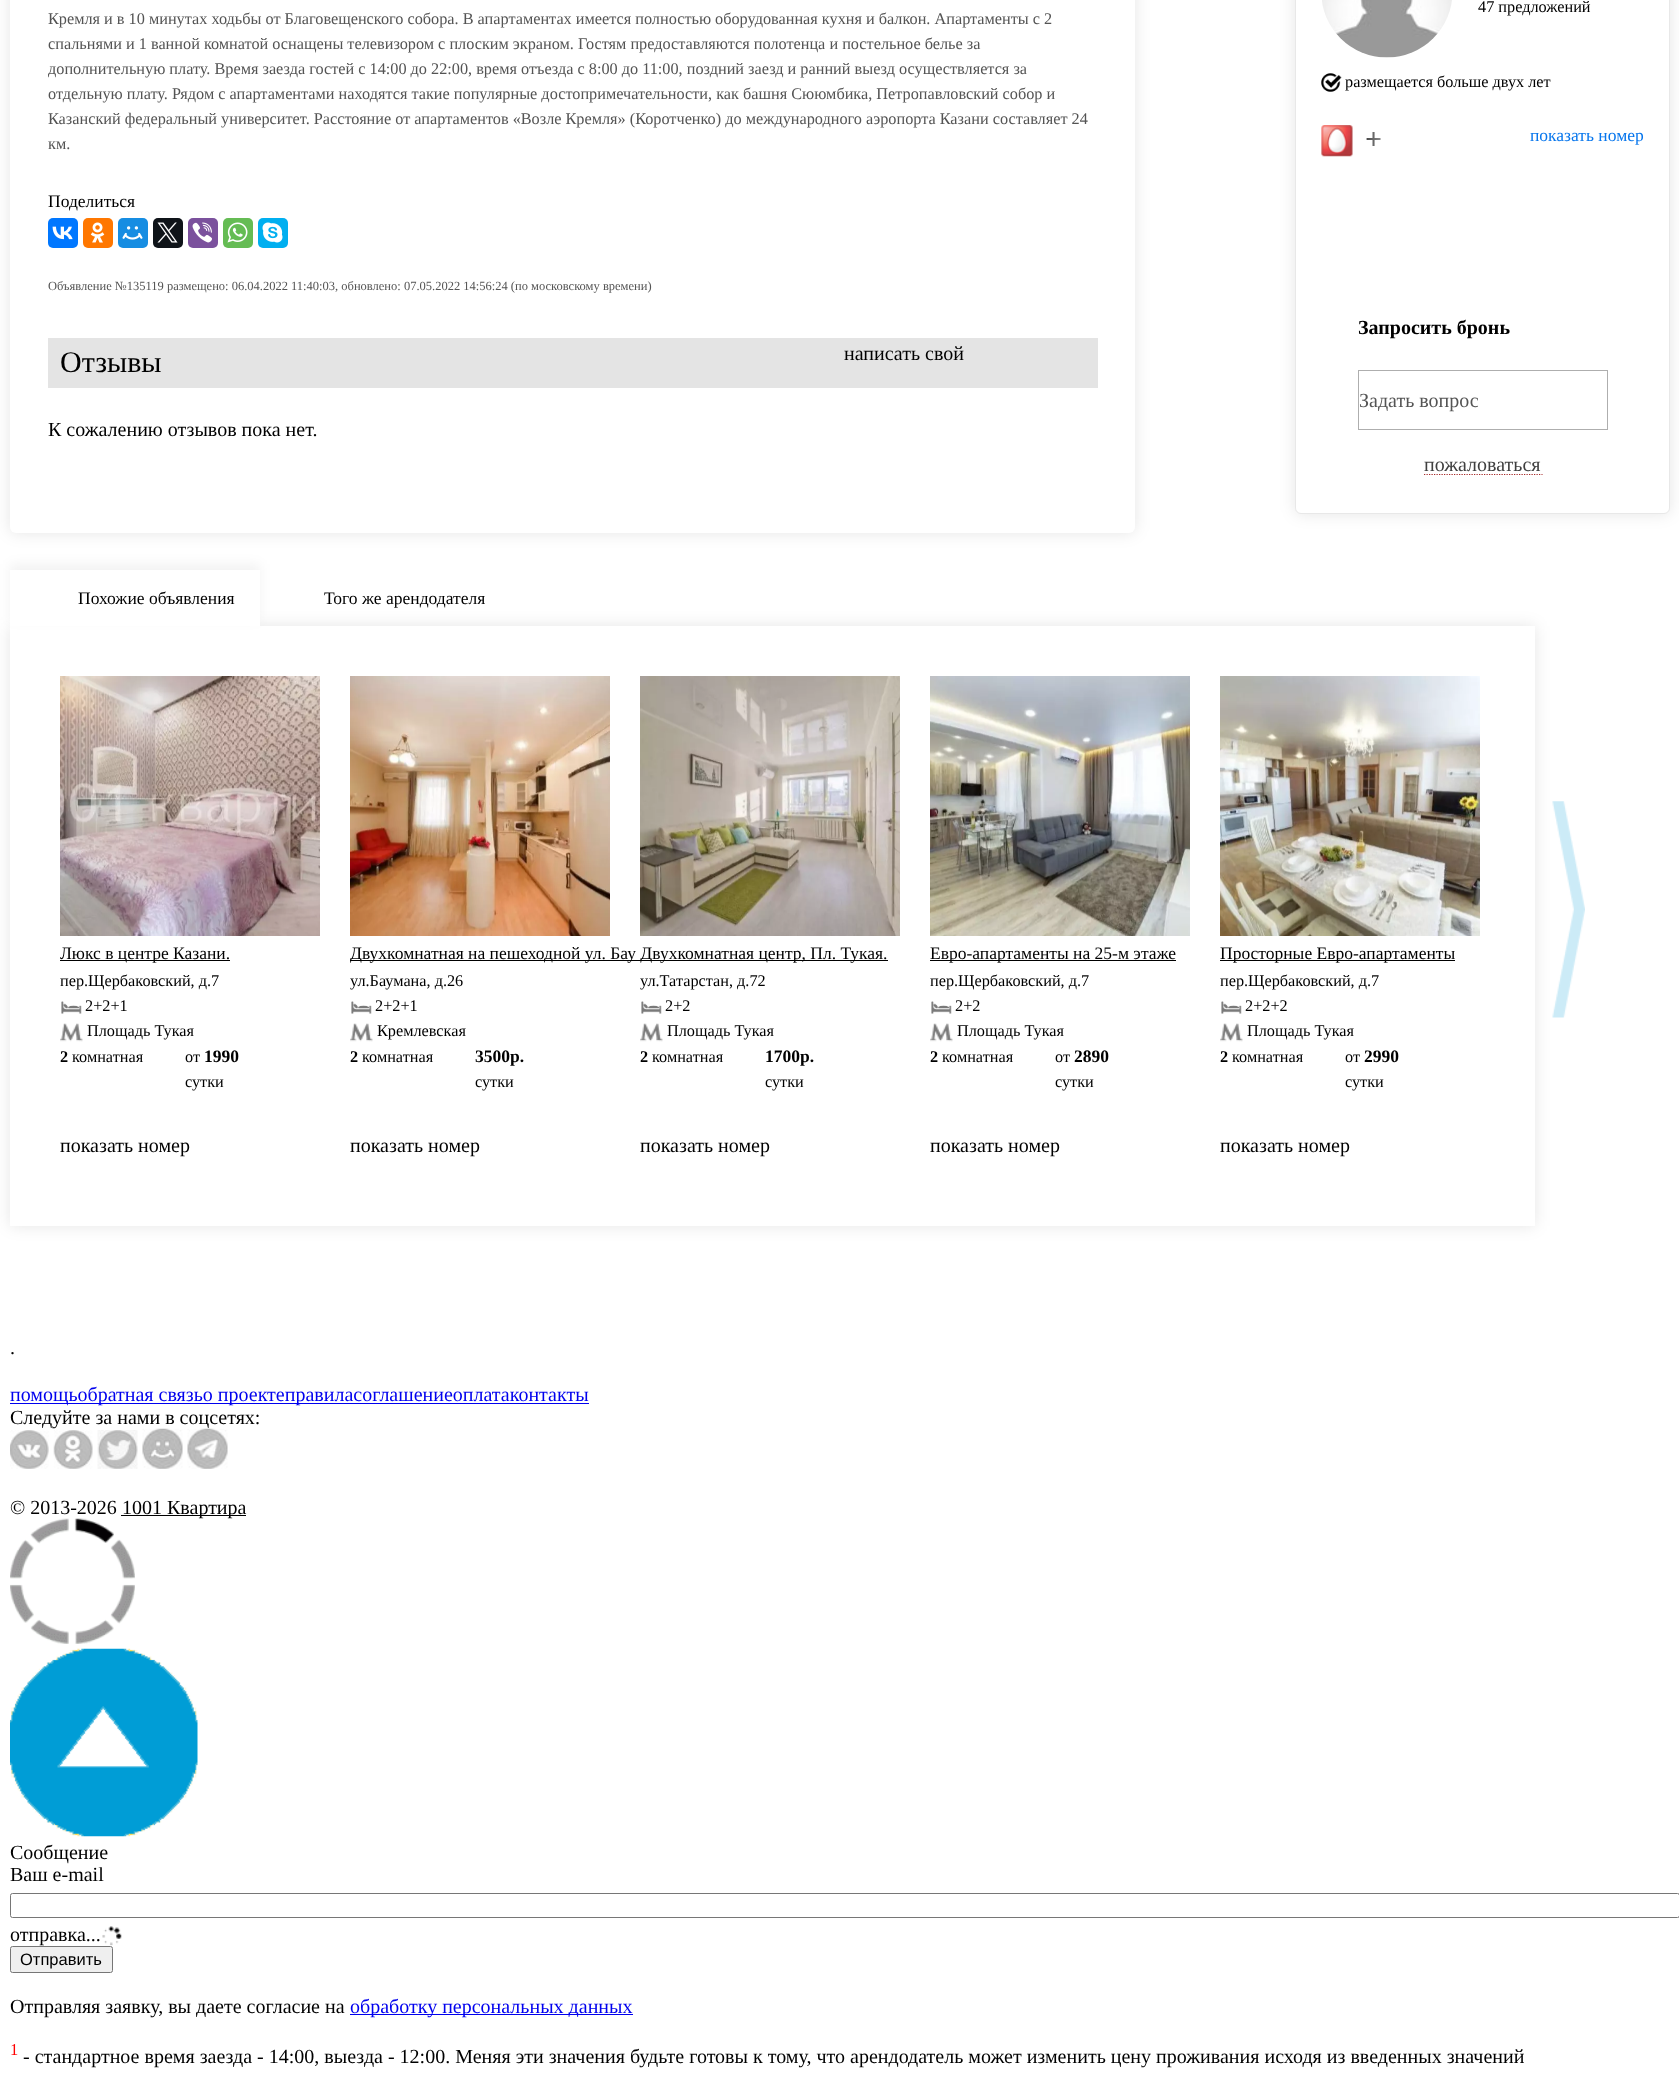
<?xml version="1.0" encoding="UTF-8"?>
<svg xmlns="http://www.w3.org/2000/svg" xmlns:xlink="http://www.w3.org/1999/xlink" width="1679" height="2078">
  <rect width="100%" height="100%" fill="#ffffff" />
  <rect x="10" y="-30" width="1125" height="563" rx="6" fill="#000000" fill-opacity="0.1" filter="blur(8px)" />
  <rect x="10" y="-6" width="1125" height="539" rx="6" fill="#ffffff" />
  <rect x="48" y="218" width="30" height="30" rx="5" fill="#0077ff" />
  <image x="52" y="226" width="21" height="14" xlink:href="image1.png" />
  <rect x="83" y="218" width="30" height="30" rx="5" fill="#ff7700" />
  <image x="90" y="222" width="15" height="21" xlink:href="image2.png" />
  <rect x="118" y="218" width="30" height="30" rx="5" fill="#168de2" />
  <image x="122" y="226" width="21" height="14" xlink:href="image3.png" />
  <rect x="153" y="218" width="30" height="30" rx="5" fill="#0f1419" />
  <image x="157" y="222" width="21" height="21" xlink:href="image4.png" />
  <rect x="188" y="218" width="30" height="30" rx="5" fill="#7b519d" />
  <image x="192" y="222" width="20" height="21" xlink:href="image5.png" />
  <rect x="223" y="218" width="30" height="30" rx="5" fill="#65bc54" />
  <image x="227" y="222" width="21" height="21" xlink:href="image6.png" />
  <rect x="258" y="218" width="30" height="30" rx="5" fill="#00aff0" />
  <image x="262" y="222" width="21" height="21" xlink:href="image7.png" />
  <rect x="48" y="338" width="1050" height="50" fill="#e4e4e4" />
  <rect x="1295" y="-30" width="375" height="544" rx="6" fill="#000000" fill-opacity="0.1" filter="blur(8px)" />
  <rect x="1295.5" y="-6.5" width="374" height="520" rx="5.5" fill="#ffffff" stroke="#e8e8e8" />
  <image x="1322" y="0" width="130" height="58" xlink:href="image8.png" />
  <image x="1321" y="73" width="21" height="19" xlink:href="image9.png" />
  <image x="1321" y="125" width="32" height="32" xlink:href="image10.png" />
  <rect x="1358.5" y="370.5" width="249" height="59" fill="none" stroke="#aeaeae" />
  <path d="M 1424 474.5 h 118.5" fill="none" stroke="#a52a2a" stroke-width="1.2" stroke-dasharray="1.25 1.25" />
  <rect x="10" y="626" width="1525" height="600" fill="#000000" fill-opacity="0.1" filter="blur(8px)" />
  <rect x="10" y="626" width="1525" height="600" fill="#ffffff" />
  <rect x="10" y="564" width="250" height="56" fill="#000000" fill-opacity="0.05" filter="blur(6px)" />
  <rect x="10" y="570" width="250" height="56" fill="#ffffff" />
  <image x="1552" y="801" width="33" height="217" xlink:href="image12.png" />
  <image x="60" y="676" width="260" height="260" xlink:href="image13.png" />
  <rect x="60" y="960" width="170" height="1" fill="#000000" />
  <image x="61" y="1001" width="21" height="13" xlink:href="image14.png" />
  <image x="60" y="1023" width="23" height="19" xlink:href="image15.png" />
  <image x="350" y="676" width="260" height="260" xlink:href="image16.png" />
  <rect x="350" y="960" width="538" height="1" fill="#000000" />
  <image x="351" y="1001" width="21" height="13" xlink:href="image14.png" />
  <image x="350" y="1023" width="23" height="19" xlink:href="image15.png" />
  <image x="930" y="676" width="260" height="260" xlink:href="image17.png" />
  <rect x="930" y="960" width="246" height="1" fill="#000000" />
  <image x="931" y="1001" width="21" height="13" xlink:href="image14.png" />
  <image x="930" y="1023" width="23" height="19" xlink:href="image18.png" />
  <image x="1220" y="676" width="260" height="260" xlink:href="image19.png" />
  <rect x="1220" y="960" width="235" height="1" fill="#000000" />
  <image x="1221" y="1001" width="21" height="13" xlink:href="image14.png" />
  <image x="1220" y="1023" width="23" height="19" xlink:href="image15.png" />
  <image x="640" y="676" width="260" height="260" xlink:href="image20.png" />
  <image x="641" y="1001" width="21" height="13" xlink:href="image14.png" />
  <image x="640" y="1023" width="23" height="19" xlink:href="image15.png" />
  <rect x="10" y="1403" width="579" height="1" fill="#0000ee" />
  <image x="10" y="1430" width="39" height="39" xlink:href="image21.png" />
  <image x="53" y="1430" width="40" height="39" xlink:href="image22.png" />
  <image x="97" y="1430" width="41" height="39" xlink:href="image23.png" />
  <rect x="121" y="1515" width="125" height="1" fill="#000000" />
  <image x="10" y="1648" width="188" height="189" xlink:href="image27.png" />
  <rect x="10.5" y="1893.5" width="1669" height="24" rx="2" fill="none" stroke="#767676" />
  <image x="102" y="1926" width="20" height="20" xlink:href="image28.png" />
  <rect x="10.5" y="1946.5" width="102" height="26" rx="2" fill="#efefef" stroke="#767676" />
  <rect x="350" y="2014" width="283" height="1" fill="#0000ee" />
  <text x="48" y="24" style="font-family: Liberation Serif; font-size: 16.25px; fill: #545454">Кремля и в 10 минутах ходьбы от Благовещенского собора. В апартаментах имеется полностью оборудованная кухня и балкон. Апартаменты с 2</text>
  <text x="48" y="49" style="font-family: Liberation Serif; font-size: 16.25px; fill: #545454">спальнями и 1 ванной комнатой оснащены телевизором с плоским экраном. Гостям предоставляются полотенца и постельное белье за</text>
  <text x="48" y="74" style="font-family: Liberation Serif; font-size: 16.25px; fill: #545454">дополнительную плату. Время заезда гостей с 14:00 до 22:00, время отъезда с 8:00 до 11:00, поздний заезд и ранний выезд осуществляется за</text>
  <text x="48" y="99" style="font-family: Liberation Serif; font-size: 16.25px; fill: #545454">отдельную плату. Рядом с апартаментами находятся такие популярные достопримечательности, как башня Сююмбика, Петропавловский собор и</text>
  <text x="48" y="124" style="font-family: Liberation Serif; font-size: 16.25px; fill: #545454">Казанский федеральный университет. Расстояние от апартаментов «Возле Кремля» (Коротченко) до международного аэропорта Казани составляет 24</text>
  <text x="48" y="149" style="font-family: Liberation Serif; font-size: 16.25px; fill: #545454">км.</text>
  <text x="48" y="207" style="font-family: Liberation Serif; font-size: 17.5px; fill: #000000">Поделиться</text>
  <text x="48" y="290" style="font-family: Liberation Serif; font-size: 12.5px; fill: #545454">Объявление №135119 размещено: 06.04.2022 11:40:03, обновлено: 07.05.2022 14:56:24 (по московскому времени)</text>
  <text x="60" y="372" style="font-family: Liberation Serif; font-size: 30px; fill: #000000">Отзывы</text>
  <text x="844" y="360" style="font-family: Liberation Serif; font-size: 20px; fill: #000000">написать свой</text>
  <text x="48" y="436" style="font-family: Liberation Serif; font-size: 20px; fill: #000000">К сожалению отзывов пока нет.</text>
  <text x="1478" y="12" style="font-family: Liberation Serif; font-size: 16.25px; fill: #000000">47 предложений</text>
  <text x="1345" y="87" style="font-family: Liberation Serif; font-size: 16.25px; fill: #000000">размещается больше двух лет</text>
  <text x="1365" y="149" style="font-family: Liberation Serif; font-size: 30px; font-weight: bold; fill: #000000">+</text>
  <image x="1321" y="125" width="280" height="32" xlink:href="image11.png" />
  <text x="1530" y="141" style="font-family: Liberation Serif; font-size: 17.5px; fill: #0776ed">показать номер</text>
  <text x="1358" y="334" style="font-family: Liberation Serif; font-size: 20px; font-weight: bold; fill: #000000">Запросить бронь</text>
  <text x="1359" y="407" style="font-family: Liberation Serif; font-size: 20px; fill: #545454">Задать вопрос</text>
  <text x="1424" y="471" style="font-family: Liberation Serif; font-size: 20px; fill: #3f3f3f">пожаловаться</text>
  <text x="78" y="604" style="font-family: Liberation Serif; font-size: 17.5px; fill: #000000">Похожие объявления</text>
  <text x="324" y="604" style="font-family: Liberation Serif; font-size: 17.5px; fill: #000000">Того же арендодателя</text>
  <text x="60" y="959" style="font-family: Liberation Serif; font-size: 17.5px; fill: #000000">Люкс в центре Казани.</text>
  <text x="60" y="986" style="font-family: Liberation Serif; font-size: 16.25px; fill: #000000">пер.Щербаковский, д.7</text>
  <text x="85" y="1011" style="font-family: Liberation Serif; font-size: 16.25px; fill: #000000">2+2+1</text>
  <text x="87" y="1036" style="font-family: Liberation Serif; font-size: 16.25px; fill: #000000">Площадь Тукая</text>
  <text x="60" y="1062" style="font-family: Liberation Serif; font-size: 16.25px; font-weight: bold; fill: #000000">2</text>
  <text x="72" y="1062" style="font-family: Liberation Serif; font-size: 16.25px; fill: #000000">комнатная</text>
  <text x="185" y="1062" style="font-family: Liberation Serif; font-size: 16.25px; fill: #000000">от</text>
  <text x="204" y="1062" style="font-family: Liberation Serif; font-size: 17.5px; font-weight: bold; fill: #000000">1990</text>
  <text x="185" y="1087" style="font-family: Liberation Serif; font-size: 16.25px; fill: #000000">сутки</text>
  <text x="60" y="1152" style="font-family: Liberation Serif; font-size: 20px; fill: #000000">показать номер</text>
  <text x="350" y="959" style="font-family: Liberation Serif; font-size: 17.5px; fill: #000000">Двухкомнатная на пешеходной ул. Бау Двухкомнатная центр, Пл. Тукая.</text>
  <text x="350" y="986" style="font-family: Liberation Serif; font-size: 16.25px; fill: #000000">ул.Баумана, д.26</text>
  <text x="375" y="1011" style="font-family: Liberation Serif; font-size: 16.25px; fill: #000000">2+2+1</text>
  <text x="377" y="1036" style="font-family: Liberation Serif; font-size: 16.25px; fill: #000000">Кремлевская</text>
  <text x="350" y="1062" style="font-family: Liberation Serif; font-size: 16.25px; font-weight: bold; fill: #000000">2</text>
  <text x="362" y="1062" style="font-family: Liberation Serif; font-size: 16.25px; fill: #000000">комнатная</text>
  <text x="475" y="1062" style="font-family: Liberation Serif; font-size: 17.5px; font-weight: bold; fill: #000000">3500р.</text>
  <text x="475" y="1087" style="font-family: Liberation Serif; font-size: 16.25px; fill: #000000">сутки</text>
  <text x="350" y="1152" style="font-family: Liberation Serif; font-size: 20px; fill: #000000">показать номер</text>
  <text x="930" y="959" style="font-family: Liberation Serif; font-size: 17.5px; fill: #000000">Евро-апартаменты на 25-м этаже</text>
  <text x="930" y="986" style="font-family: Liberation Serif; font-size: 16.25px; fill: #000000">пер.Щербаковский, д.7</text>
  <text x="955" y="1011" style="font-family: Liberation Serif; font-size: 16.25px; fill: #000000">2+2</text>
  <text x="957" y="1036" style="font-family: Liberation Serif; font-size: 16.25px; fill: #000000">Площадь Тукая</text>
  <text x="930" y="1062" style="font-family: Liberation Serif; font-size: 16.25px; font-weight: bold; fill: #000000">2</text>
  <text x="942" y="1062" style="font-family: Liberation Serif; font-size: 16.25px; fill: #000000">комнатная</text>
  <text x="1055" y="1062" style="font-family: Liberation Serif; font-size: 16.25px; fill: #000000">от</text>
  <text x="1074" y="1062" style="font-family: Liberation Serif; font-size: 17.5px; font-weight: bold; fill: #000000">2890</text>
  <text x="1055" y="1087" style="font-family: Liberation Serif; font-size: 16.25px; fill: #000000">сутки</text>
  <text x="930" y="1152" style="font-family: Liberation Serif; font-size: 20px; fill: #000000">показать номер</text>
  <text x="1220" y="959" style="font-family: Liberation Serif; font-size: 17.5px; fill: #000000">Просторные Евро-апартаменты</text>
  <text x="1220" y="986" style="font-family: Liberation Serif; font-size: 16.25px; fill: #000000">пер.Щербаковский, д.7</text>
  <text x="1245" y="1011" style="font-family: Liberation Serif; font-size: 16.25px; fill: #000000">2+2+2</text>
  <text x="1247" y="1036" style="font-family: Liberation Serif; font-size: 16.25px; fill: #000000">Площадь Тукая</text>
  <text x="1220" y="1062" style="font-family: Liberation Serif; font-size: 16.25px; font-weight: bold; fill: #000000">2</text>
  <text x="1232" y="1062" style="font-family: Liberation Serif; font-size: 16.25px; fill: #000000">комнатная</text>
  <text x="1345" y="1062" style="font-family: Liberation Serif; font-size: 16.25px; fill: #000000">от</text>
  <text x="1364" y="1062" style="font-family: Liberation Serif; font-size: 17.5px; font-weight: bold; fill: #000000">2990</text>
  <text x="1345" y="1087" style="font-family: Liberation Serif; font-size: 16.25px; fill: #000000">сутки</text>
  <text x="1220" y="1152" style="font-family: Liberation Serif; font-size: 20px; fill: #000000">показать номер</text>
  <text x="640" y="986" style="font-family: Liberation Serif; font-size: 16.25px; fill: #000000">ул.Татарстан, д.72</text>
  <text x="665" y="1011" style="font-family: Liberation Serif; font-size: 16.25px; fill: #000000">2+2</text>
  <text x="667" y="1036" style="font-family: Liberation Serif; font-size: 16.25px; fill: #000000">Площадь Тукая</text>
  <text x="640" y="1062" style="font-family: Liberation Serif; font-size: 16.25px; font-weight: bold; fill: #000000">2</text>
  <text x="652" y="1062" style="font-family: Liberation Serif; font-size: 16.25px; fill: #000000">комнатная</text>
  <text x="765" y="1062" style="font-family: Liberation Serif; font-size: 17.5px; font-weight: bold; fill: #000000">1700р.</text>
  <text x="765" y="1087" style="font-family: Liberation Serif; font-size: 16.25px; fill: #000000">сутки</text>
  <text x="640" y="1152" style="font-family: Liberation Serif; font-size: 20px; fill: #000000">показать номер</text>
  <text x="10" y="1354" style="font-family: Liberation Serif; font-size: 20px; fill: #000000">.</text>
  <text x="10" y="1401" style="font-family: Liberation Serif; font-size: 20px; fill: #0000ee">помощьобратная связьо проектеправиласоглашениеоплатаконтакты</text>
  <text x="10" y="1424" style="font-family: Liberation Serif; font-size: 20px; fill: #000000">Следуйте за нами в соцсетях:</text>
  <image x="142" y="1428" width="41" height="41" xlink:href="image24.png" />
  <image x="187" y="1428" width="41" height="41" xlink:href="image25.png" />
  <text x="10" y="1514" style="font-family: Liberation Serif; font-size: 20px; fill: #000000">© 2013-2026</text>
  <text x="122" y="1514" style="font-family: Liberation Serif; font-size: 20px; fill: #000000">1001 Квартира</text>
  <image x="10" y="1518" width="125" height="126" xlink:href="image26.png" />
  <text x="10" y="1859" style="font-family: Liberation Serif; font-size: 20px; fill: #000000">Сообщение</text>
  <text x="10" y="1881" style="font-family: Liberation Serif; font-size: 20px; fill: #000000">Ваш e-mail</text>
  <text x="10" y="1941" style="font-family: Liberation Serif; font-size: 20px; fill: #000000">отправка...</text>
  <text x="20" y="1965" style="font-family: Liberation Sans; font-size: 16.5px; fill: #000000">Отправить</text>
  <text x="10" y="2013" style="font-family: Liberation Serif; font-size: 20px; fill: #000000">Отправляя заявку, вы даете согласие на</text>
  <text x="350" y="2013" style="font-family: Liberation Serif; font-size: 20px; fill: #0000ee">обработку персональных данных</text>
  <text x="10" y="2055" style="font-family: Liberation Serif; font-size: 16.5px; fill: #ff0000">1</text>
  <text x="23" y="2063" style="font-family: Liberation Serif; font-size: 20px; fill: #000000">- стандартное время заезда - 14:00, выезда - 12:00. Меняя эти значения будьте готовы к тому, что арендодатель может изменить цену проживания исходя из введенных значений</text>
</svg>
